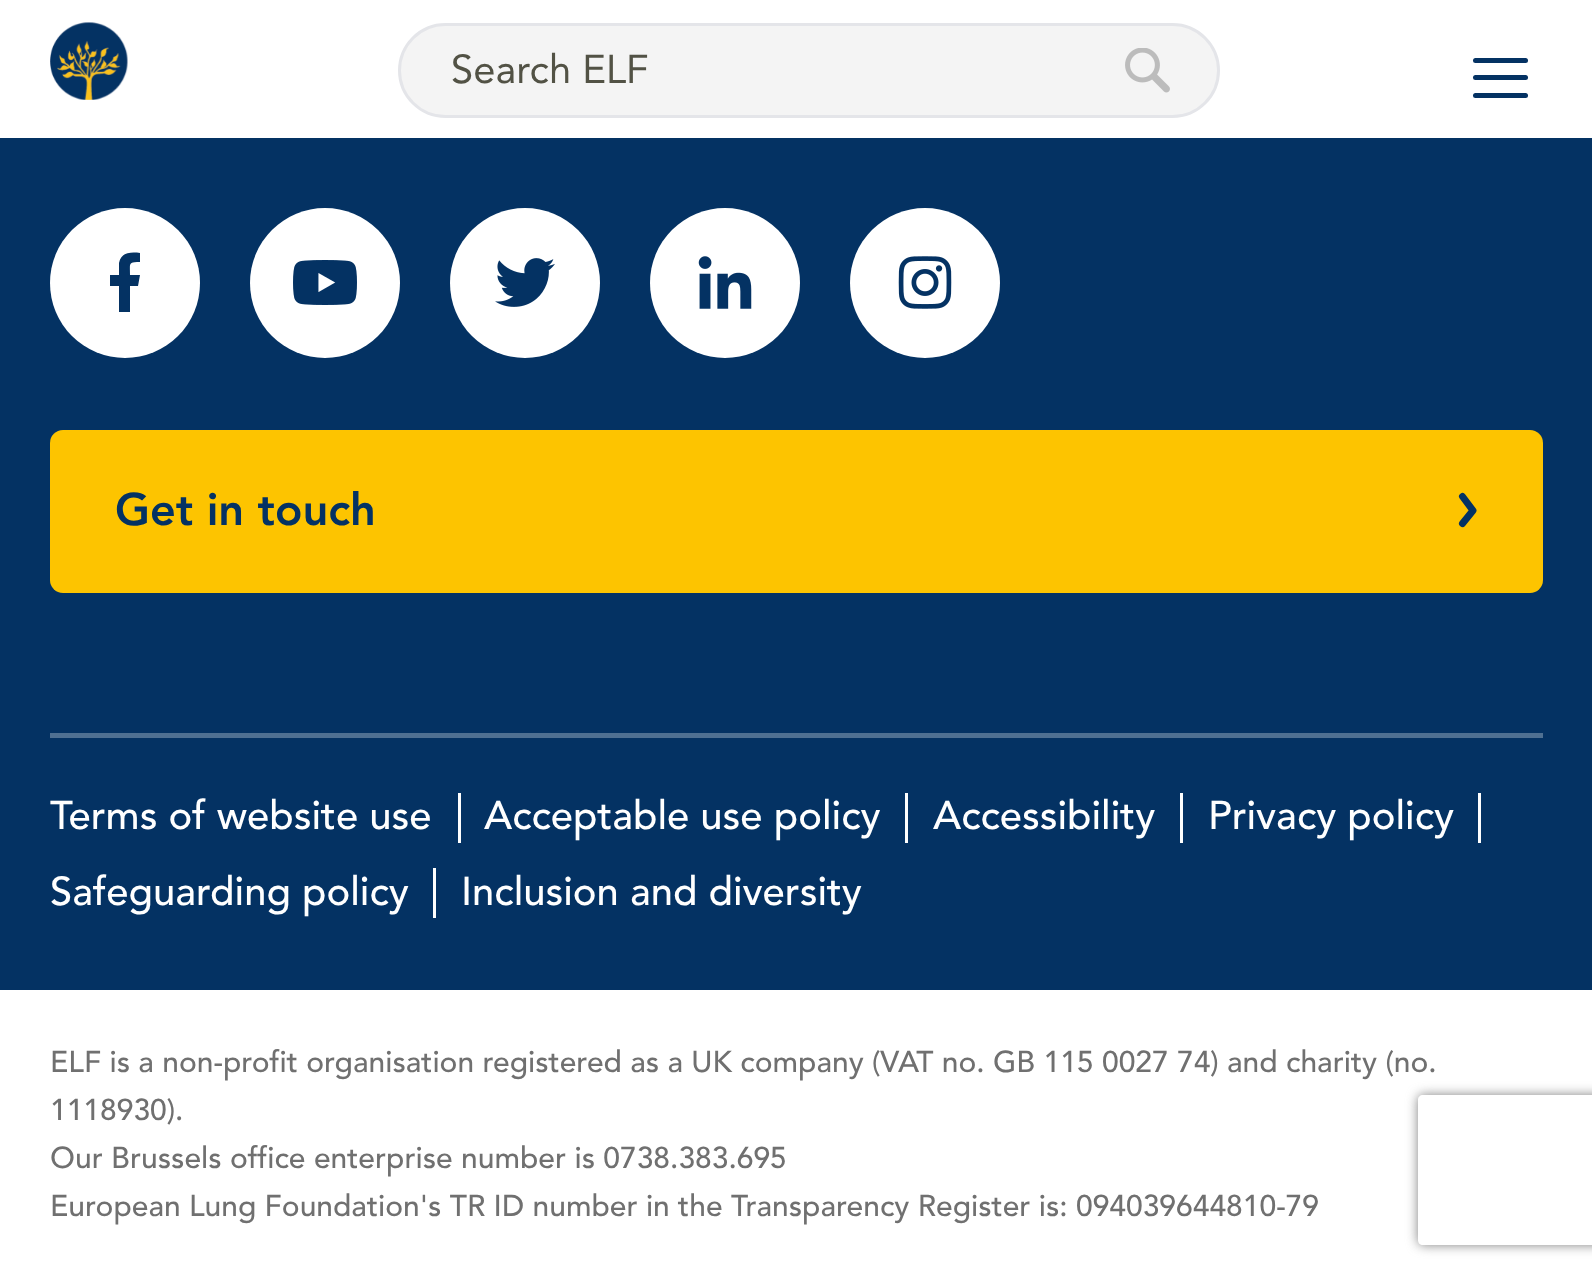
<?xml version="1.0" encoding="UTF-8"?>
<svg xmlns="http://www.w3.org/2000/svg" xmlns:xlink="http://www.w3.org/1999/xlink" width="1592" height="1278">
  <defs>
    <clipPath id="clip1"><path d="M 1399 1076 h 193 v 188 h -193 z m 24 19 h 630 c 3 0 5 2 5 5 v 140 c 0 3 -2 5 -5 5 h -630 c -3 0 -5 -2 -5 -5 v -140 c 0 -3 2 -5 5 -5 z" clip-rule="evenodd" /></clipPath>
  </defs>
  <rect width="100%" height="100%" fill="#ffffff" />
  <image x="50" y="22" width="78" height="78" xlink:href="image1.png" />
  <rect x="399.5" y="24.5" width="819" height="92" rx="46" fill="#f4f4f4" stroke="#e4e5e9" stroke-width="3" />
  <image x="1125" y="48" width="45" height="45" xlink:href="image2.png" />
  <rect x="1473" y="75" width="55" height="5" rx="2.5" fill="#043263" />
  <rect x="1473" y="58" width="55" height="5" rx="2.5" fill="#043263" />
  <rect x="1473" y="93" width="55" height="5" rx="2.5" fill="#043263" />
  <rect y="138" width="1592" height="852" fill="#043263" />
  <circle cx="125" cy="283" r="75" fill="#ffffff" />
  <path d="M 119 312 v -26 h -9 v -11 h 9 v -12 c 2 -11 12 -11 21 -10 v 9 c -12 0 -10 1 -10 13 h 10 l -2 11 h -8 v 26 z" fill="#043263" />
  <circle cx="325" cy="283" r="75" fill="#ffffff" />
  <image x="293" y="260" width="64" height="45" xlink:href="image3.png" />
  <circle cx="525" cy="283" r="75" fill="#ffffff" />
  <image x="495" y="258" width="60" height="49" xlink:href="image4.png" />
  <circle cx="725" cy="283" r="75" fill="#ffffff" />
  <image x="698" y="256" width="54" height="53" xlink:href="image5.png" />
  <circle cx="925" cy="283" r="75" fill="#ffffff" />
  <image x="898" y="256" width="54" height="53" xlink:href="image6.png" />
  <rect x="50" y="430" width="1493" height="163" rx="13" fill="#fdc400" />
  <path d="M 1462.5 496.5 l 10.5 14 l -10.5 13" fill="none" stroke="#043263" stroke-width="7" stroke-linecap="round" stroke-linejoin="round" />
  <rect x="50" y="733" width="1493" height="5" fill="#4f7092" />
  <rect x="458" y="793" width="3" height="50" fill="#ffffff" />
  <rect x="905" y="793" width="3" height="50" fill="#ffffff" />
  <rect x="1180" y="793" width="3" height="50" fill="#ffffff" />
  <rect x="1478" y="793" width="3" height="50" fill="#ffffff" />
  <rect x="433" y="868" width="3" height="50" fill="#ffffff" />
  <g clip-path="url(#clip1)">
    <rect x="1418" y="1095" width="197" height="150" rx="5" fill="#808080" filter="blur(6px)" />
  </g>
  <text x="451" y="83" style="font-family: 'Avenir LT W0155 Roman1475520'; font-size: 40px; fill: #525245">Search ELF</text>
  <text x="115" y="525" style="font-family: 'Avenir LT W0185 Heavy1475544'; font-size: 45px; font-weight: 900; fill: #043263">Get in touch</text>
  <text x="50" y="829" style="font-family: 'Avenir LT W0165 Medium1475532'; font-size: 40px; font-weight: 500; fill: #ffffff">Terms of website use</text>
  <text x="484" y="829" style="font-family: 'Avenir LT W0165 Medium1475532'; font-size: 40px; font-weight: 500; fill: #ffffff">Acceptable use policy</text>
  <text x="933" y="829" style="font-family: 'Avenir LT W0165 Medium1475532'; font-size: 40px; font-weight: 500; fill: #ffffff">Accessibility</text>
  <text x="1208" y="829" style="font-family: 'Avenir LT W0165 Medium1475532'; font-size: 40px; font-weight: 500; fill: #ffffff">Privacy policy</text>
  <text x="50" y="905" style="font-family: 'Avenir LT W0165 Medium1475532'; font-size: 40px; font-weight: 500; fill: #ffffff">Safeguarding policy</text>
  <text x="461" y="905" style="font-family: 'Avenir LT W0165 Medium1475532'; font-size: 40px; font-weight: 500; fill: #ffffff">Inclusion and diversity</text>
  <text x="50" y="1072" style="font-family: 'Avenir LT W0165 Medium1475532'; font-size: 30px; font-weight: 500; fill: #707070">ELF is a non-profit organisation registered as a UK company (VAT no. GB 115 0027 74) and charity (no.</text>
  <text x="50" y="1120" style="font-family: 'Avenir LT W0165 Medium1475532'; font-size: 30px; font-weight: 500; fill: #707070">1118930).</text>
  <text x="50" y="1168" style="font-family: 'Avenir LT W0165 Medium1475532'; font-size: 30px; font-weight: 500; fill: #707070">Our Brussels office enterprise number is 0738.383.695</text>
  <text x="50" y="1216" style="font-family: 'Avenir LT W0165 Medium1475532'; font-size: 30px; font-weight: 500; fill: #707070">European Lung Foundation's TR ID number in the Transparency Register is: 094039644810-79</text>
</svg>
